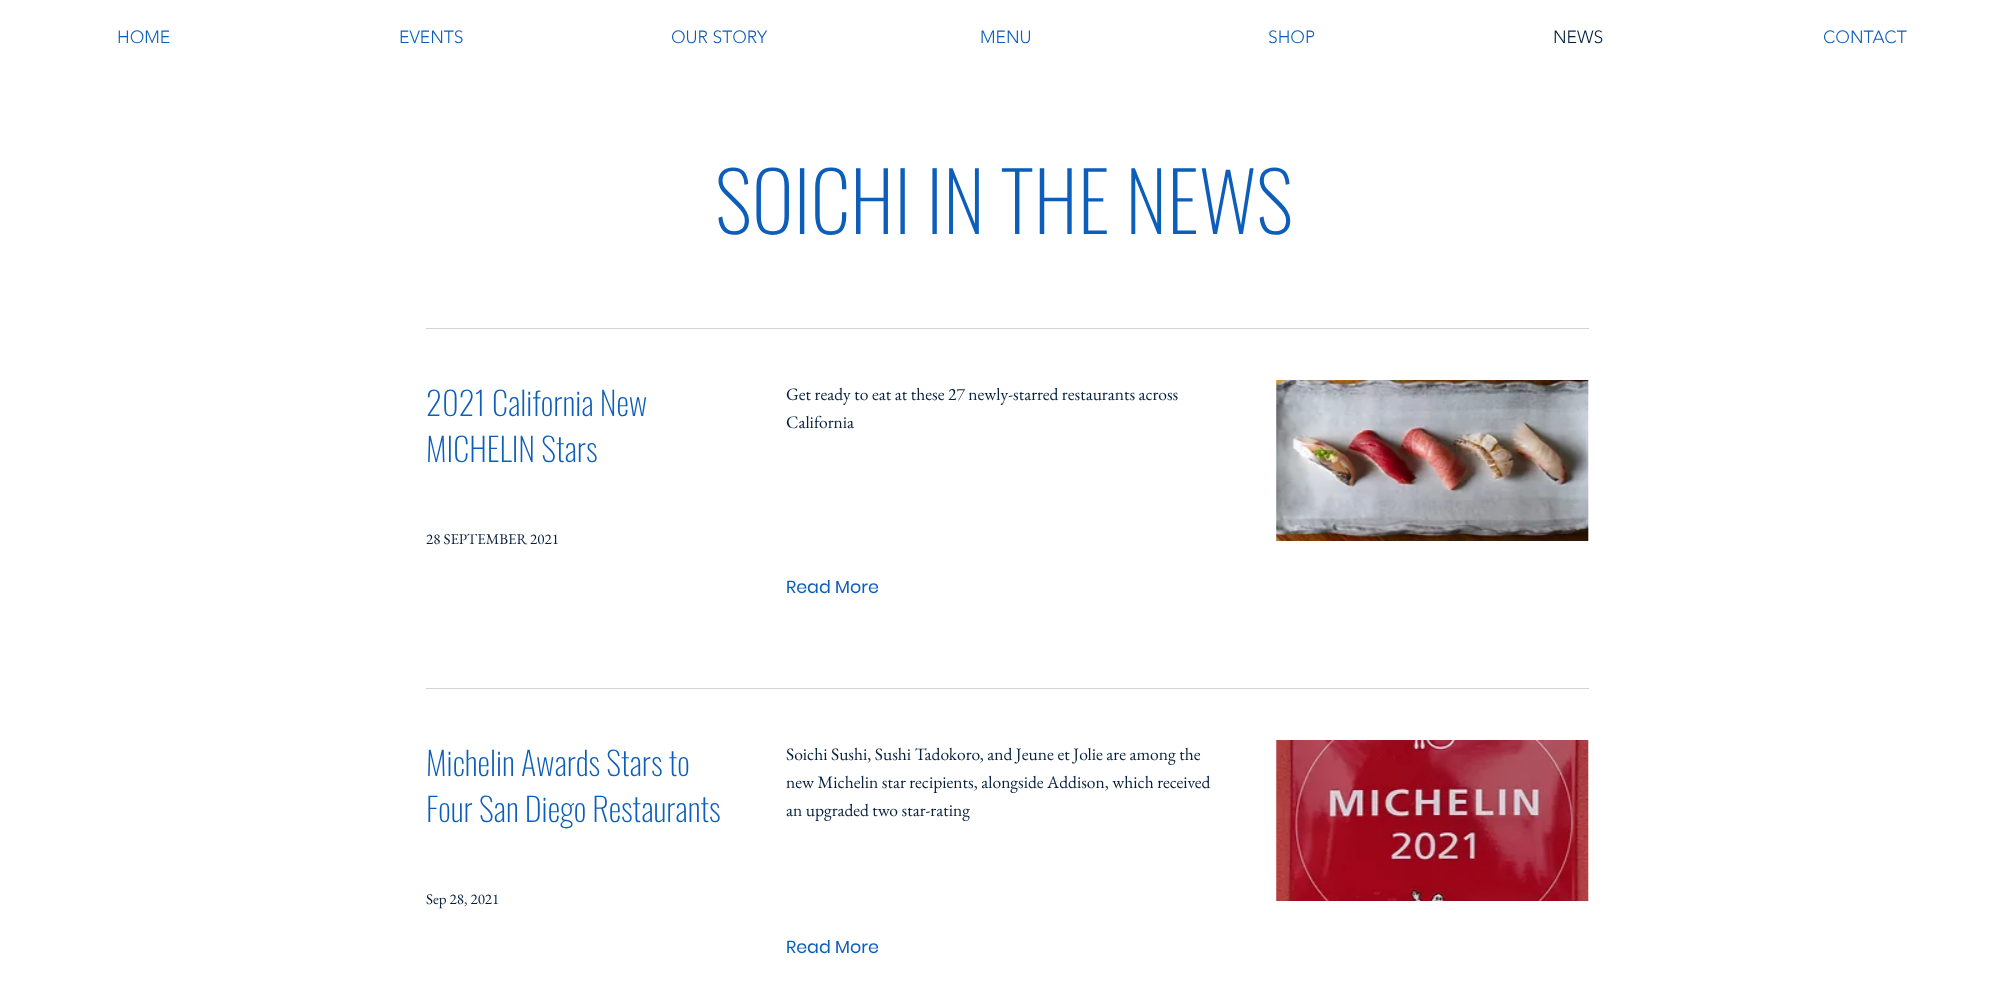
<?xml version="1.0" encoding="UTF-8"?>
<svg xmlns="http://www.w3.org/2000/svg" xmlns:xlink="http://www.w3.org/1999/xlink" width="2007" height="1003">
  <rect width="100%" height="100%" fill="#ffffff" />
  <rect x="426" y="328" width="1163" height="1" fill="#d4d4d4" />
  <image x="1276" y="380" width="313" height="161" xlink:href="image1.png" />
  <rect x="426" y="688" width="1163" height="1" fill="#d4d4d4" />
  <image x="1276" y="740" width="313" height="161" xlink:href="image2.png" />
  <text x="117" y="43" style="font-family: 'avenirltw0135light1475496'; font-size: 17.5px; font-weight: 300; fill: #0d5eba">HOME</text>
  <text x="399" y="43" style="font-family: 'avenirltw0135light1475496'; font-size: 17.5px; font-weight: 300; fill: #0d5eba">EVENTS</text>
  <text x="671" y="43" style="font-family: 'avenirltw0135light1475496'; font-size: 17.5px; font-weight: 300; fill: #0d5eba">OUR STORY</text>
  <text x="980" y="43" style="font-family: 'avenirltw0135light1475496'; font-size: 17.5px; font-weight: 300; fill: #0d5eba">MENU</text>
  <text x="1268" y="43" style="font-family: 'avenirltw0135light1475496'; font-size: 17.5px; font-weight: 300; fill: #0d5eba">SHOP</text>
  <text x="1553" y="43" style="font-family: 'avenirltw0135light1475496'; font-size: 17.5px; font-weight: 300; fill: #041f3e">NEWS</text>
  <text x="1823" y="43" style="font-family: 'avenirltw0135light1475496'; font-size: 17.5px; font-weight: 300; fill: #0d5eba">CONTACT</text>
  <text x="715" y="234" style="font-family: Oswald; font-size: 81.25px; font-weight: 200; fill: #0d5eba">SOICHI IN THE NEWS</text>
  <text x="426" y="416" style="font-family: Oswald; font-size: 32.5px; font-weight: 200; fill: #0d5eba">2021 California New</text>
  <text x="426" y="462" style="font-family: Oswald; font-size: 32.5px; font-weight: 200; fill: #0d5eba">MICHELIN Stars</text>
  <text x="786" y="400" style="font-family: EB Garamond; font-size: 17.5px; fill: #041f3e">Get ready to eat at these 27 newly-starred restaurants across</text>
  <text x="786" y="428" style="font-family: EB Garamond; font-size: 17.5px; fill: #041f3e">California</text>
  <text x="426" y="544" style="font-family: EB Garamond; font-size: 15px; fill: #041f3e">28 SEPTEMBER 2021</text>
  <text x="786" y="593" style="font-family: Poppins; font-size: 17.5px; fill: #0d5eba">Read More</text>
  <text x="426" y="776" style="font-family: Oswald; font-size: 32.5px; font-weight: 200; fill: #0d5eba">Michelin Awards Stars to</text>
  <text x="426" y="822" style="font-family: Oswald; font-size: 32.5px; font-weight: 200; fill: #0d5eba">Four San Diego Restaurants</text>
  <text x="786" y="760" style="font-family: EB Garamond; font-size: 17.5px; fill: #041f3e">Soichi Sushi, Sushi Tadokoro, and Jeune et Jolie are among the</text>
  <text x="786" y="788" style="font-family: EB Garamond; font-size: 17.5px; fill: #041f3e">new Michelin star recipients, alongside Addison, which received</text>
  <text x="786" y="816" style="font-family: EB Garamond; font-size: 17.5px; fill: #041f3e">an upgraded two star-rating</text>
  <text x="426" y="904" style="font-family: EB Garamond; font-size: 15px; fill: #041f3e">Sep 28, 2021</text>
  <text x="786" y="953" style="font-family: Poppins; font-size: 17.5px; fill: #0d5eba">Read More</text>
</svg>
